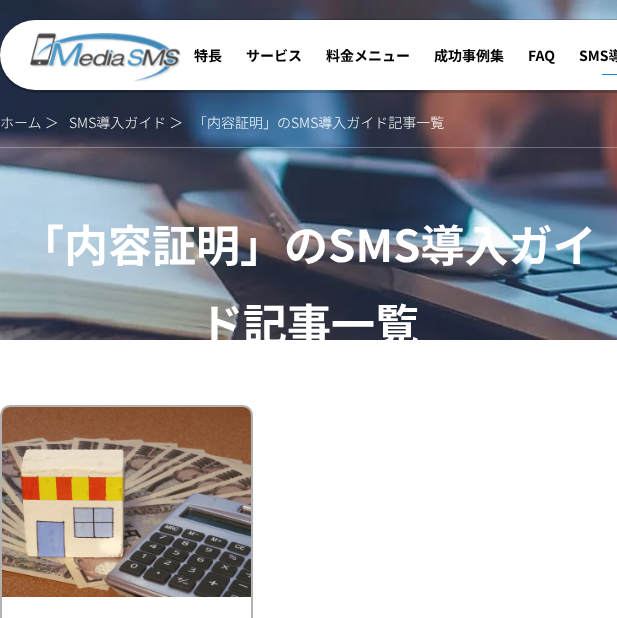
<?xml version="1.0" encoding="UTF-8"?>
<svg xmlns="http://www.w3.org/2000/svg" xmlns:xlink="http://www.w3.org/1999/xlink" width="617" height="618">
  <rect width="100%" height="100%" fill="#ffffff" />
  <image x="0" y="0" width="617" height="340" xlink:href="image2.png" />
  <rect x="-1" y="19" width="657" height="74" rx="37" fill="#000000" fill-opacity="0.2" filter="blur(0.5px)" />
  <rect y="20" width="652" height="70" rx="35" fill="#ffffff" />
  <image x="30" y="32" width="151" height="50" xlink:href="image1.png" />
  <rect x="602" y="74" width="15" height="1" fill="#0e8bd9" />
  <rect y="147" width="617" height="1" fill="#ffffff" fill-opacity="0.3" />
  <rect x="1" y="406" width="251" height="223" rx="9" fill="none" stroke="#b2b2b2" stroke-width="2" />
  <image x="2" y="407" width="249" height="190" xlink:href="image3.png" />
  <text x="194" y="61" style="font-family: Noto Sans JP; font-size: 14px; font-weight: bold; fill: #000000">特長</text>
  <text x="246" y="61" style="font-family: Noto Sans JP; font-size: 14px; font-weight: bold; fill: #000000">サービス</text>
  <text x="326" y="61" style="font-family: Noto Sans JP; font-size: 14px; font-weight: bold; fill: #000000">料金メニュー</text>
  <text x="434" y="61" style="font-family: Noto Sans JP; font-size: 14px; font-weight: bold; fill: #000000">成功事例集</text>
  <text x="528" y="61" style="font-family: Noto Sans JP; font-size: 14px; font-weight: bold; fill: #000000">FAQ</text>
  <text x="579" y="61" style="font-family: Noto Sans JP; font-size: 14px; font-weight: bold; fill: #000000">SMS導</text>
  <text x="0" y="128" style="font-family: Noto Sans JP; font-size: 14px; font-weight: 300; fill: #ffffff">ホーム ＞</text>
  <text x="69" y="128" style="font-family: Noto Sans JP; font-size: 14px; font-weight: 300; fill: #ffffff">SMS導入ガイド ＞</text>
  <text x="193" y="128" style="font-family: Noto Sans JP; font-size: 14px; font-weight: 300; fill: #ffffff">「内容証明」のSMS導入ガイド記事一覧</text>
  <text x="20" y="262" style="font-family: Noto Sans JP; font-size: 44px; font-weight: bold; fill: #ffffff">「内容証明」のSMS導入ガイ</text>
  <text x="199" y="341" style="font-family: Noto Sans JP; font-size: 44px; font-weight: bold; fill: #ffffff">ド記事一覧</text>
</svg>
